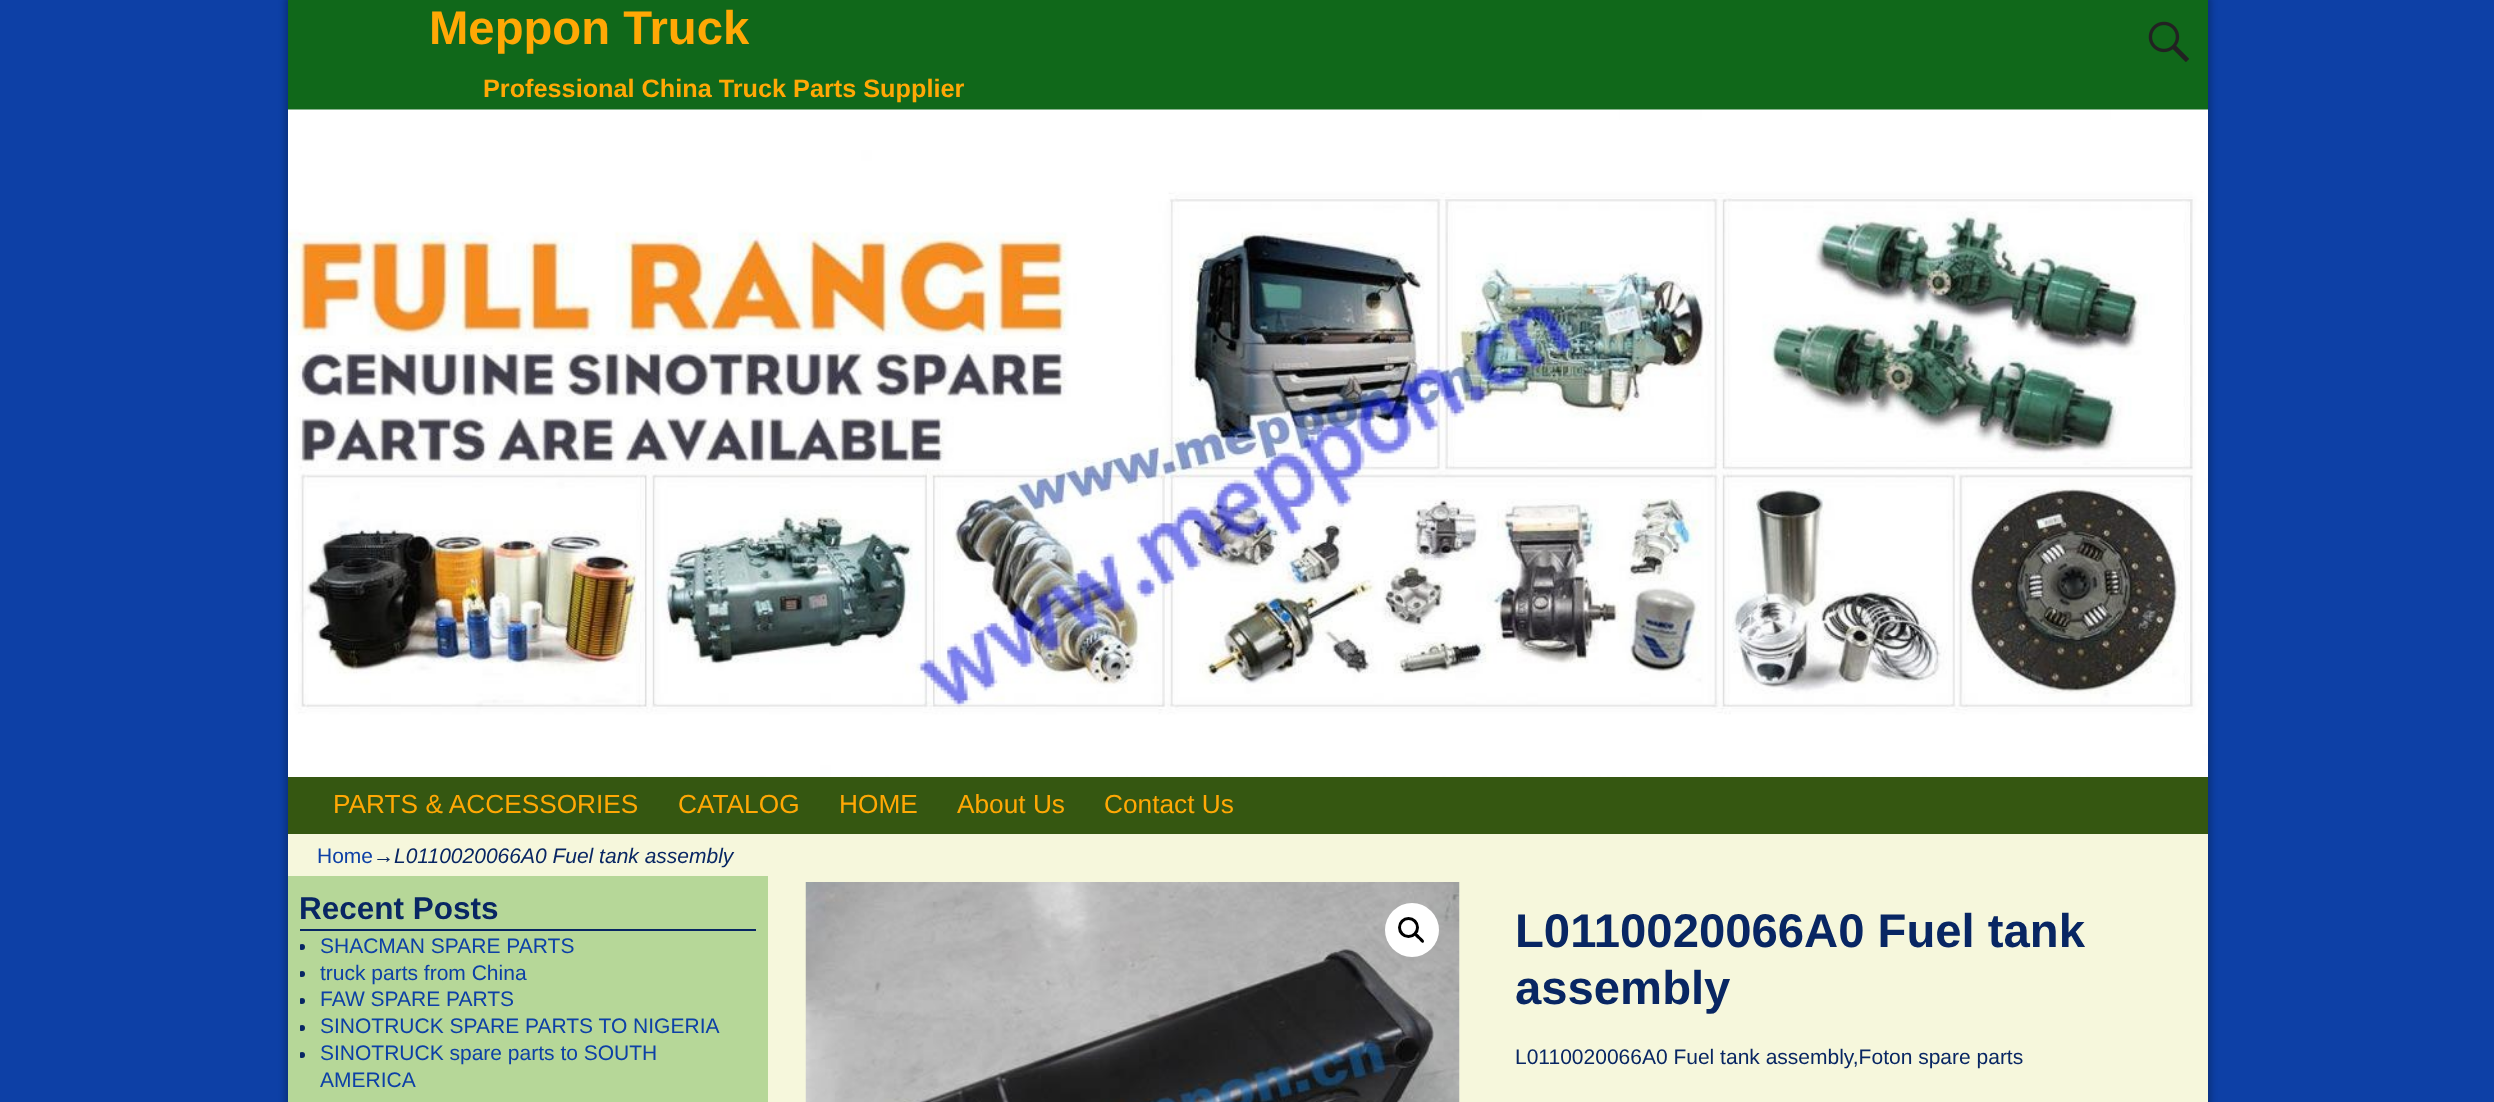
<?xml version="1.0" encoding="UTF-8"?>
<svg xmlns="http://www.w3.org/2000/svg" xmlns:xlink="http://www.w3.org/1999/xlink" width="2494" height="1102">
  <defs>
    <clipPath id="clip1"><rect x="300" y="888" width="456" height="206" /></clipPath>
  </defs>
  <rect width="100%" height="100%" fill="#0d40a6" />
  <rect x="285" y="-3" width="1926" height="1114" fill="#000000" fill-opacity="0.25" filter="blur(3px)" />
  <rect x="288" width="1920" height="110" fill="#10681a" />
  <image x="2148" y="21" width="41" height="41" xlink:href="image1.png" />
  <image x="288" y="109" width="1920" height="668" xlink:href="image2.png" />
  <rect x="288" y="777" width="1920" height="57" fill="#355711" />
  <rect x="288" y="834" width="1920" height="268" fill="#f6f7dc" />
  <rect x="288" y="876" width="480" height="226" fill="#b6d798" />
  <rect x="300" y="929" width="456" height="2" fill="#082663" />
  <g clip-path="url(#clip1)">
    <circle cx="302" cy="947" r="3" fill="#082663" />
    <circle cx="302" cy="974" r="3" fill="#082663" />
    <circle cx="302" cy="1001" r="3" fill="#082663" />
    <circle cx="302" cy="1028" r="3" fill="#082663" />
    <circle cx="302" cy="1055" r="3" fill="#082663" />
  </g>
  <image x="805" y="882" width="655" height="220" xlink:href="image3.png" />
  <circle cx="1412" cy="930" r="27" fill="#ffffff" />
  <circle cx="1408.5" cy="927.5" r="9" fill="none" stroke="#000000" stroke-width="3" />
  <path d="M 1415 934 c 2 -2 4.5 2 5.5 3 c 1 1 5 3.5 3 5.5 c -1.5 1.5 -4 -2.5 -5 -3.5 c -1 -0.5 -5 -3.5 -3.5 -5 z" fill="#000000" />
  <text x="429" y="44" style="font-family: Liberation Sans; font-size: 47.25px; font-weight: bold; fill: #ffa805">Meppon Truck</text>
  <text x="483" y="97" style="font-family: Liberation Sans; font-size: 25.25px; font-weight: bold; fill: #ffa805">Professional China Truck Parts Supplier</text>
  <text x="333" y="813" style="font-family: Liberation Sans; font-size: 26.25px; fill: #ffa805">PARTS &amp; ACCESSORIES</text>
  <text x="678" y="813" style="font-family: Liberation Sans; font-size: 26.25px; fill: #ffa805">CATALOG</text>
  <text x="839" y="813" style="font-family: Liberation Sans; font-size: 26.25px; fill: #ffa805">HOME</text>
  <text x="957" y="813" style="font-family: Liberation Sans; font-size: 26.25px; fill: #ffa805">About Us</text>
  <text x="1104" y="813" style="font-family: Liberation Sans; font-size: 26.25px; fill: #ffa805">Contact Us</text>
  <text x="317" y="863" style="font-family: Liberation Sans; font-size: 21px; fill: #0d40a6">Home</text>
  <text x="373" y="863" style="font-family: Liberation Sans; font-size: 21px; fill: #082663">→</text>
  <text x="394" y="863" style="font-family: Liberation Sans; font-size: 21px; font-style: italic; fill: #082663">L0110020066A0 Fuel tank assembly</text>
  <text x="299" y="919" style="font-family: Liberation Sans; font-size: 31.5px; font-weight: bold; fill: #082663">Recent Posts</text>
  <text x="320" y="953" style="font-family: Liberation Sans; font-size: 21px; fill: #0d40a6">SHACMAN SPARE PARTS</text>
  <text x="320" y="980" style="font-family: Liberation Sans; font-size: 21px; fill: #0d40a6">truck parts from China</text>
  <text x="320" y="1006" style="font-family: Liberation Sans; font-size: 21px; fill: #0d40a6">FAW SPARE PARTS</text>
  <text x="320" y="1033" style="font-family: Liberation Sans; font-size: 21px; fill: #0d40a6">SINOTRUCK SPARE PARTS TO NIGERIA</text>
  <text x="320" y="1060" style="font-family: Liberation Sans; font-size: 21px; fill: #0d40a6">SINOTRUCK spare parts to SOUTH</text>
  <text x="320" y="1087" style="font-family: Liberation Sans; font-size: 21px; fill: #0d40a6">AMERICA</text>
  <text x="1515" y="947" style="font-family: Liberation Sans; font-size: 47.25px; font-weight: bold; fill: #082663">L0110020066A0 Fuel tank</text>
  <text x="1515" y="1004" style="font-family: Liberation Sans; font-size: 47.25px; font-weight: bold; fill: #082663">assembly</text>
  <text x="1515" y="1064" style="font-family: Liberation Sans; font-size: 21px; fill: #082663">L0110020066A0 Fuel tank assembly,Foton spare parts</text>
</svg>
